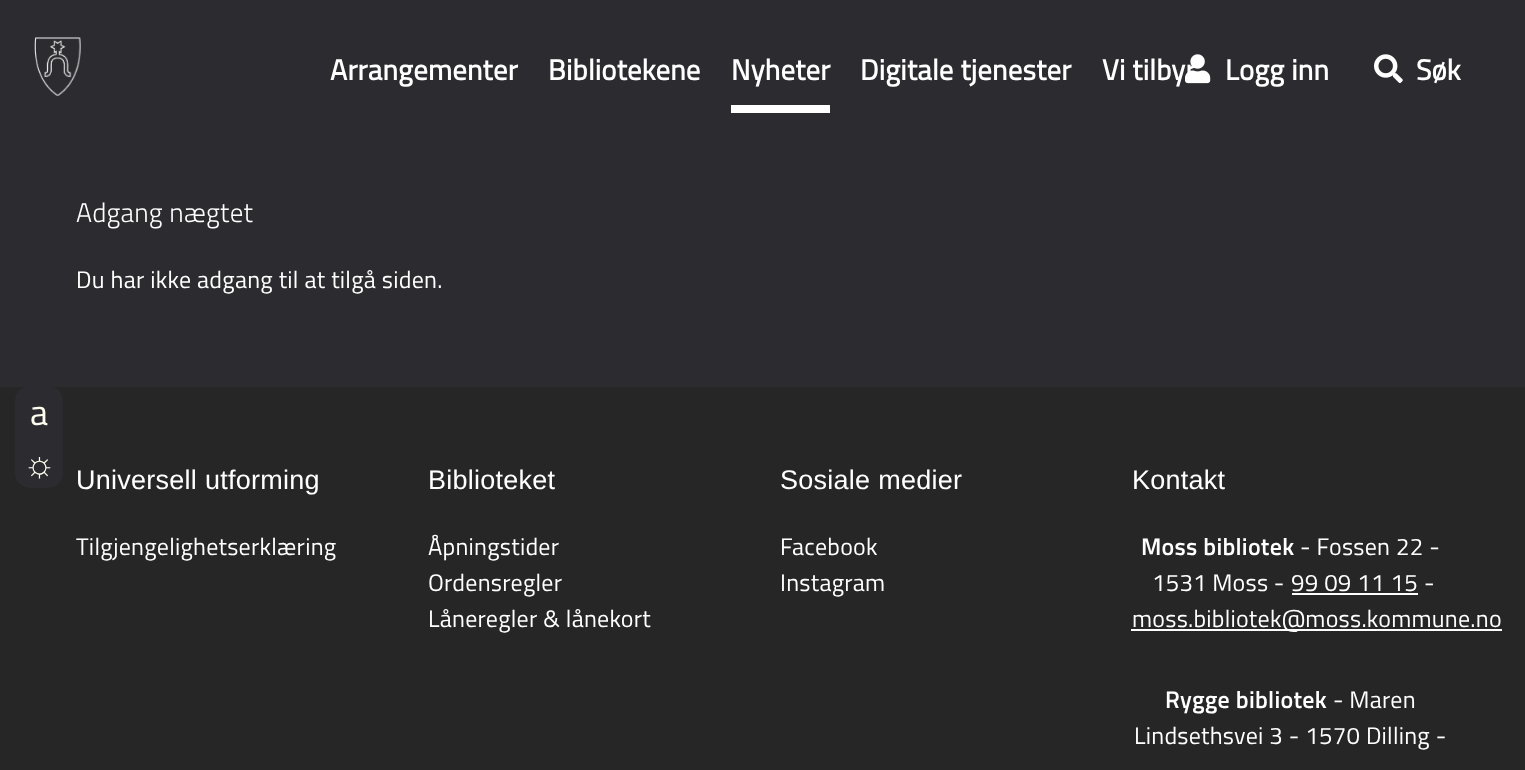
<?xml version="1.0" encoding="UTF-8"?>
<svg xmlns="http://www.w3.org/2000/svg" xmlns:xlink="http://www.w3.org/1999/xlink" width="1525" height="770">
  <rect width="100%" height="100%" fill="#2c2c30" />
  <image x="34" y="37" width="47" height="59" xlink:href="image1.png" />
  <rect x="731" y="105" width="99" height="8" fill="#ffffff" />
  <image x="1374" y="54" width="29" height="30" xlink:href="image3.png" />
  <rect y="387" width="1525" height="383" fill="#262626" />
  <rect x="15" y="386" width="48" height="102" rx="15" fill="#2c2c30" />
  <rect x="1292" y="593" width="126" height="2" fill="#ffffff" />
  <rect x="1131" y="629" width="371" height="2" fill="#ffffff" />
  <text x="330" y="80" style="font-family: Titillium Web; font-size: 28.75px; font-weight: bold; letter-spacing: 0.25px; fill: #ffffff">Arrangementer</text>
  <text x="548" y="80" style="font-family: Titillium Web; font-size: 28.75px; font-weight: bold; letter-spacing: 0.25px; fill: #ffffff">Bibliotekene</text>
  <text x="731" y="80" style="font-family: Titillium Web; font-size: 28.75px; font-weight: bold; letter-spacing: 0.25px; fill: #ffffff">Nyheter</text>
  <text x="860" y="80" word-spacing="0.25" style="font-family: Titillium Web; font-size: 28.75px; font-weight: bold; letter-spacing: 0.25px; fill: #ffffff">Digitale tjenester</text>
  <text x="1102" y="80" word-spacing="0.25" style="font-family: Titillium Web; font-size: 28.75px; font-weight: bold; letter-spacing: 0.25px; fill: #ffffff">Vi tilbyr</text>
  <image x="1185" y="54" width="26" height="30" xlink:href="image2.png" />
  <text x="1225" y="80" word-spacing="0.25" style="font-family: Titillium Web; font-size: 28.75px; font-weight: bold; letter-spacing: 0.25px; fill: #ffffff">Logg inn</text>
  <text x="1416" y="80" style="font-family: Titillium Web; font-size: 28.75px; font-weight: bold; fill: #ffffff">Søk</text>
  <text x="30" y="425" style="font-family: Titillium Web; font-size: 36px; letter-spacing: 0.25px; fill: #fffff1">a</text>
  <text x="23" y="476" style="font-family: Liberation Sans; font-size: 36px; letter-spacing: 0.25px; fill: #fffff1">☼</text>
  <text x="76" y="222" word-spacing="0.25" style="font-family: Titillium Web; font-size: 27px; font-weight: 300; letter-spacing: 0.25px; fill: #ffffff">Adgang nægtet</text>
  <text x="76" y="288" word-spacing="0.25" style="font-family: Titillium Web; font-size: 24px; letter-spacing: 0.25px; fill: #ffffff">Du har ikke adgang til at tilgå siden.</text>
  <text x="76" y="489" word-spacing="0.25" style="font-family: Liberation Sans; font-size: 27px; letter-spacing: 0.25px; fill: #ffffff">Universell utforming</text>
  <text x="76" y="555" style="font-family: Titillium Web; font-size: 24px; letter-spacing: 0.25px; fill: #ffffff">Tilgjengelighetserklæring</text>
  <text x="428" y="489" style="font-family: Liberation Sans; font-size: 27px; letter-spacing: 0.25px; fill: #ffffff">Biblioteket</text>
  <text x="428" y="555" style="font-family: Titillium Web; font-size: 24px; letter-spacing: 0.25px; fill: #ffffff">Åpningstider</text>
  <text x="428" y="591" style="font-family: Titillium Web; font-size: 24px; letter-spacing: 0.25px; fill: #ffffff">Ordensregler</text>
  <text x="428" y="627" word-spacing="0.25" style="font-family: Titillium Web; font-size: 24px; letter-spacing: 0.25px; fill: #ffffff">Låneregler &amp; lånekort</text>
  <text x="780" y="489" word-spacing="0.25" style="font-family: Liberation Sans; font-size: 27px; letter-spacing: 0.25px; fill: #ffffff">Sosiale medier</text>
  <text x="780" y="555" style="font-family: Titillium Web; font-size: 24px; letter-spacing: 0.25px; fill: #ffffff">Facebook</text>
  <text x="780" y="591" style="font-family: Titillium Web; font-size: 24px; letter-spacing: 0.25px; fill: #ffffff">Instagram</text>
  <text x="1132" y="489" style="font-family: Liberation Sans; font-size: 27px; letter-spacing: 0.25px; fill: #ffffff">Kontakt</text>
  <text x="1141" y="555" word-spacing="0.25" style="font-family: Titillium Web; font-size: 24px; font-weight: 600; letter-spacing: 0.25px; fill: #ffffff">Moss bibliotek</text>
  <text x="1300" y="555" word-spacing="0.25" style="font-family: Titillium Web; font-size: 24px; letter-spacing: 0.25px; fill: #ffffff">- Fossen 22 -</text>
  <text x="1152" y="591" style="font-family: Titillium Web; font-size: 24px; letter-spacing: 0.25px; fill: #ffffff">1531 Moss -</text>
  <text x="1291" y="591" word-spacing="0.25" style="font-family: Titillium Web; font-size: 24px; letter-spacing: 0.25px; fill: #ffffff">99 09 11 15</text>
  <text x="1424" y="591" style="font-family: Titillium Web; font-size: 24px; letter-spacing: 0.25px; fill: #ffffff">-</text>
  <text x="1132" y="627" style="font-family: Titillium Web; font-size: 24px; letter-spacing: 0.25px; fill: #ffffff">moss.bibliotek@moss.kommune.no</text>
  <text x="1165" y="708" word-spacing="0.25" style="font-family: Titillium Web; font-size: 24px; font-weight: 600; letter-spacing: 0.25px; fill: #ffffff">Rygge bibliotek</text>
  <text x="1333" y="708" style="font-family: Titillium Web; font-size: 24px; letter-spacing: 0.25px; fill: #ffffff">- Maren</text>
  <text x="1134" y="744" word-spacing="0.25" style="font-family: Titillium Web; font-size: 24px; letter-spacing: 0.25px; fill: #ffffff">Lindsethsvei 3 - 1570 Dilling -</text>
</svg>
